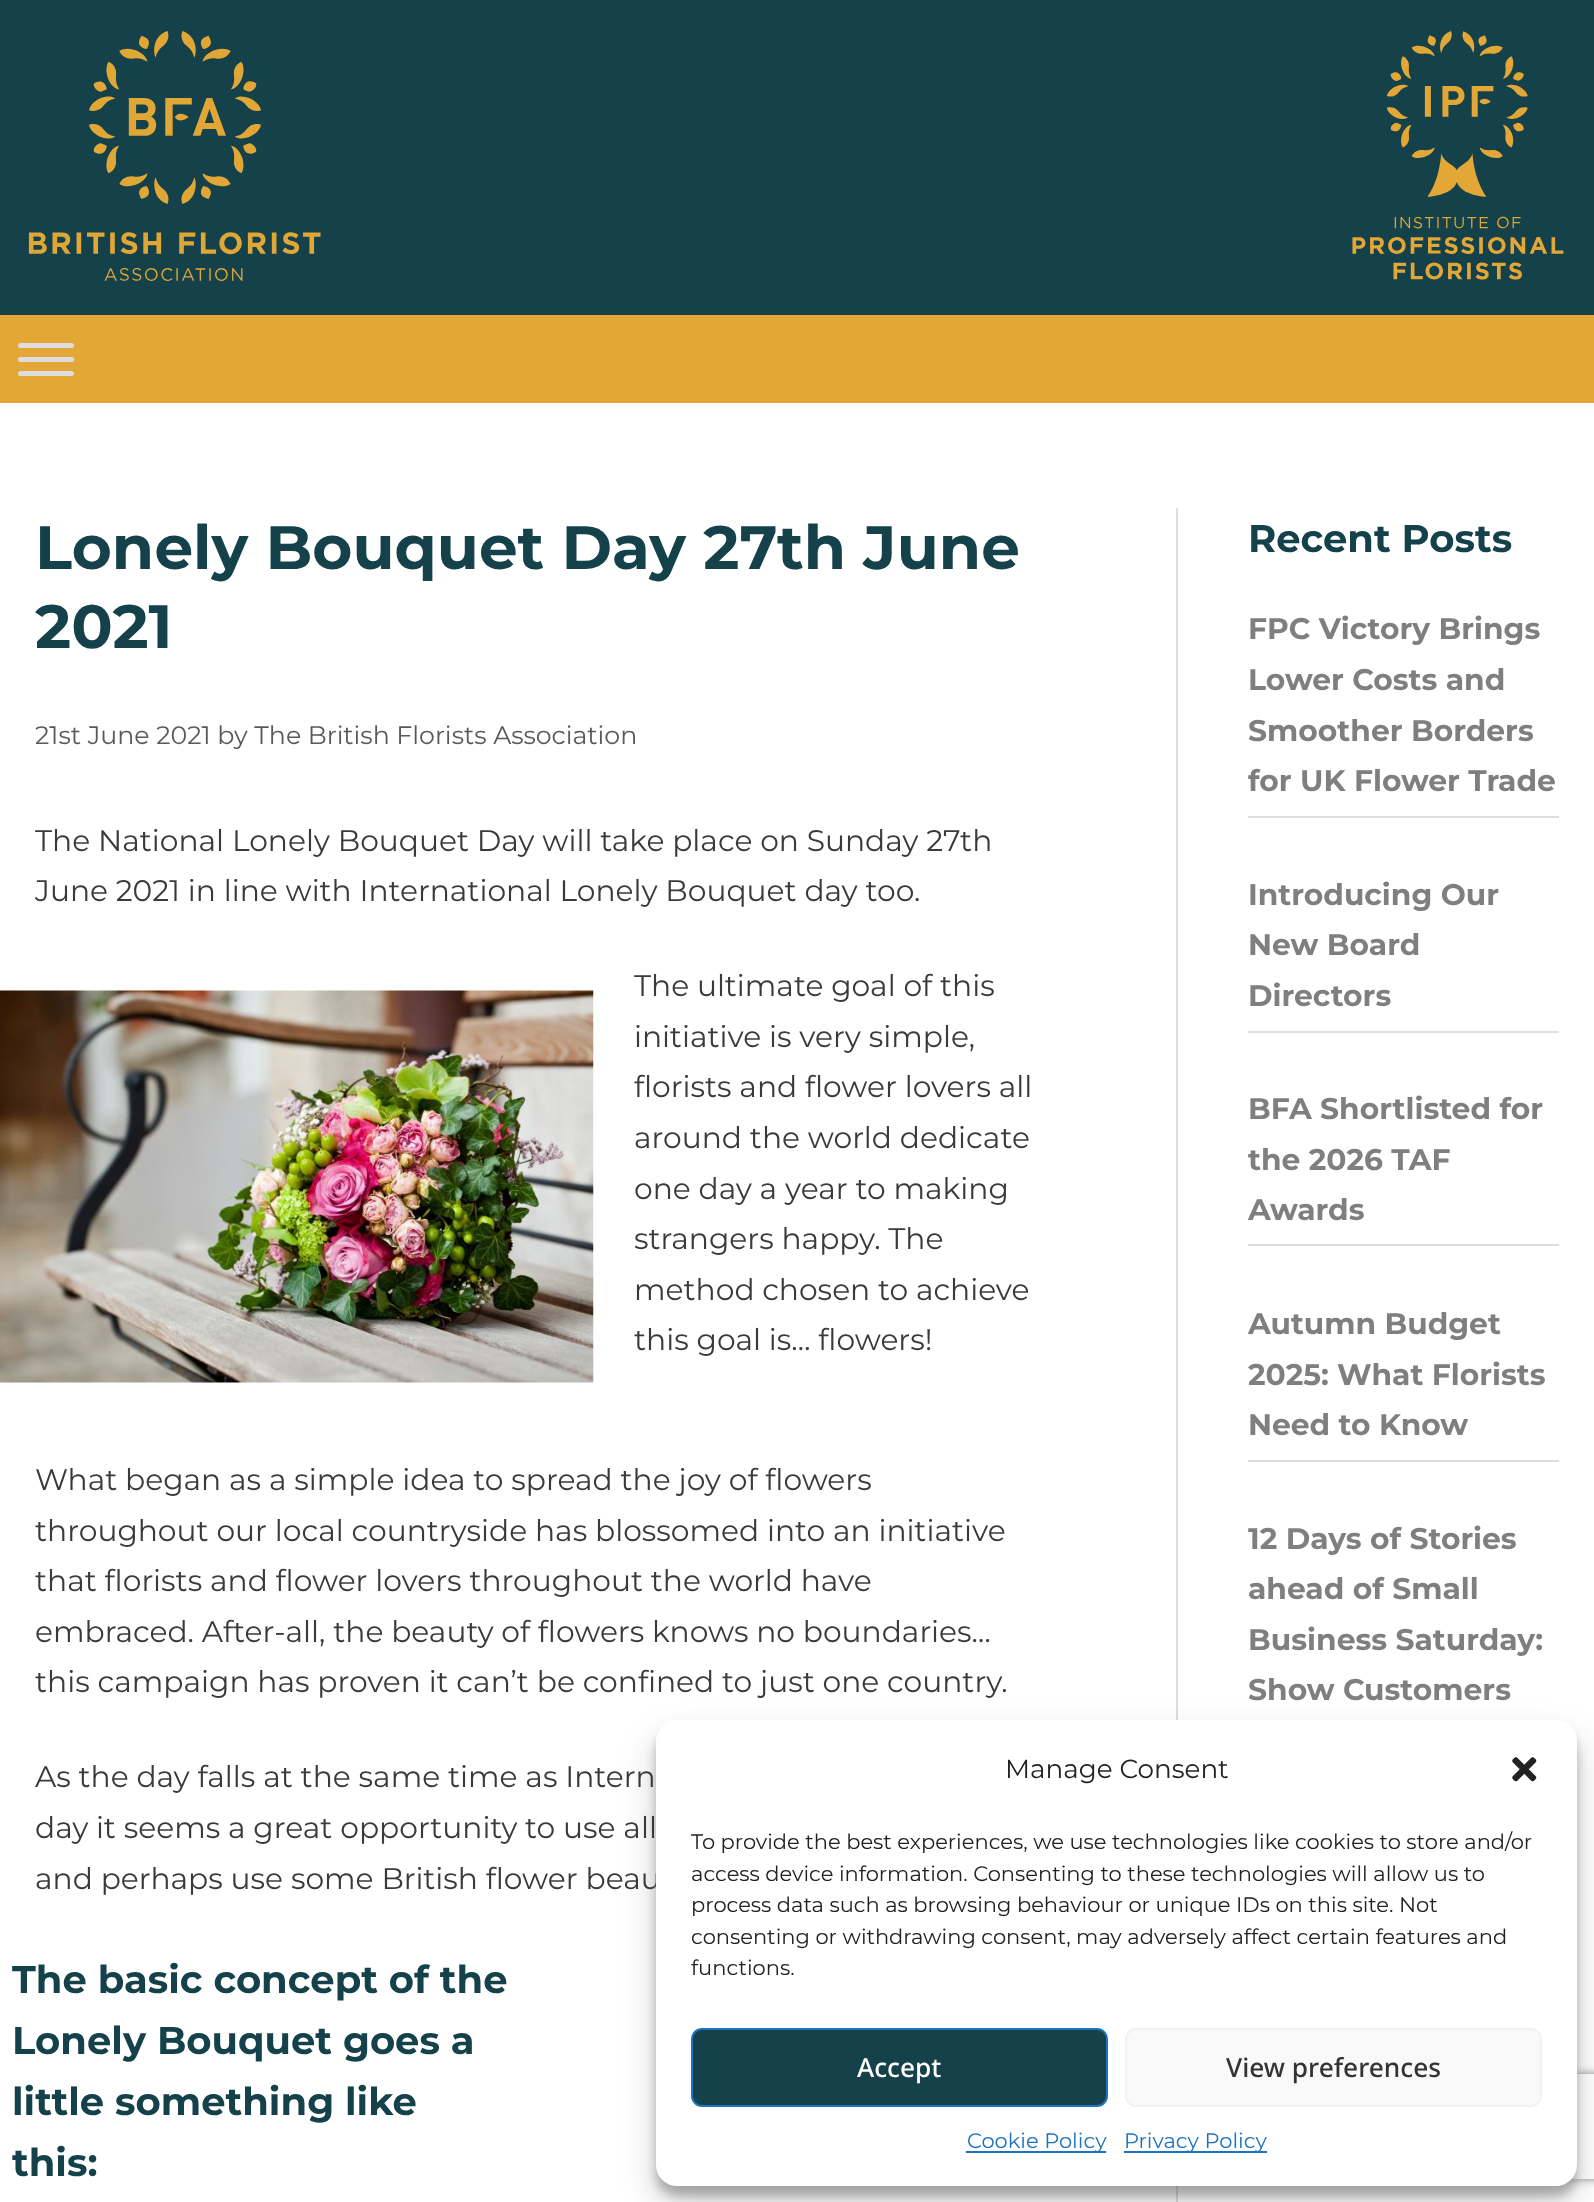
<?xml version="1.0" encoding="UTF-8"?>
<svg xmlns="http://www.w3.org/2000/svg" xmlns:xlink="http://www.w3.org/1999/xlink" width="1594" height="2202">
  <defs>
    <clipPath id="clip1"><path d="M 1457 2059 h 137 v 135 h -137 z m 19 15 h 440 c 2 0 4 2 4 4 v 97 c 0 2 -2 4 -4 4 h -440 c -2 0 -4 -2 -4 -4 v -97 c 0 -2 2 -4 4 -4 z" clip-rule="evenodd" /></clipPath>
  </defs>
  <rect width="100%" height="100%" fill="#15414a" />
  <image x="28" y="31" width="293" height="250" xlink:href="image1.png" />
  <image x="1352" y="31" width="212" height="249" xlink:href="image2.png" />
  <rect y="315" width="1594" height="88" fill="#e2a736" />
  <rect x="18" y="343" width="56" height="5" rx="2.5" fill="#dddddd" />
  <rect x="18" y="357" width="56" height="5" rx="2.5" fill="#dddddd" />
  <rect x="18" y="371" width="56" height="5" rx="2.5" fill="#dddddd" />
  <rect y="403" width="1594" height="1799" fill="#ffffff" />
  <rect x="1176" y="508" width="2" height="1694" fill="#dedde1" />
  <image x="0" y="990" width="594" height="393" xlink:href="image3.png" />
  <rect x="1248" y="816" width="311" height="2" fill="#dedde1" />
  <rect x="1248" y="1031" width="311" height="2" fill="#dedde1" />
  <rect x="1248" y="1244" width="311" height="2" fill="#dedde1" />
  <rect x="1248" y="1460" width="311" height="2" fill="#dedde1" />
  <rect x="656" y="1731" width="921" height="465" rx="21" fill="#000000" fill-opacity="0.23" filter="blur(5px)" />
  <rect x="656" y="1738" width="921" height="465" rx="21" fill="#000000" fill-opacity="0.19" filter="blur(17.5px)" />
  <g clip-path="url(#clip1)">
    <rect x="1472" y="2074" width="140" height="105" rx="4" fill="#808080" filter="blur(4.5px)" />
  </g>
  <text x="35" y="569" style="font-family: Montserrat; font-size: 61.25px; font-weight: bold; fill: #15414a">Lonely Bouquet Day 27th June</text>
  <text x="35" y="648" style="font-family: Montserrat; font-size: 61.25px; font-weight: bold; fill: #15414a">2021</text>
  <text x="35" y="744" style="font-family: Montserrat; font-size: 25.25px; fill: #595959">21st June 2021 by The British Florists Association</text>
  <text x="35" y="851" style="font-family: Montserrat; font-size: 29.75px; fill: #3a3a3a">The National Lonely Bouquet Day will take place on Sunday 27th</text>
  <text x="35" y="901" style="font-family: Montserrat; font-size: 29.75px; fill: #3a3a3a">June 2021 in line with International Lonely Bouquet day too.</text>
  <text x="634" y="996" style="font-family: Montserrat; font-size: 29.75px; fill: #3a3a3a">The ultimate goal of this</text>
  <text x="634" y="1047" style="font-family: Montserrat; font-size: 29.75px; fill: #3a3a3a">initiative is very simple,</text>
  <text x="634" y="1097" style="font-family: Montserrat; font-size: 29.75px; fill: #3a3a3a">florists and flower lovers all</text>
  <text x="634" y="1148" style="font-family: Montserrat; font-size: 29.75px; fill: #3a3a3a">around the world dedicate</text>
  <text x="634" y="1199" style="font-family: Montserrat; font-size: 29.75px; fill: #3a3a3a">one day a year to making</text>
  <text x="634" y="1249" style="font-family: Montserrat; font-size: 29.75px; fill: #3a3a3a">strangers happy. The</text>
  <text x="634" y="1300" style="font-family: Montserrat; font-size: 29.75px; fill: #3a3a3a">method chosen to achieve</text>
  <text x="634" y="1350" style="font-family: Montserrat; font-size: 29.75px; fill: #3a3a3a">this goal is… flowers!</text>
  <text x="35" y="1490" style="font-family: Montserrat; font-size: 29.75px; fill: #3a3a3a">What began as a simple idea to spread the joy of flowers</text>
  <text x="35" y="1541" style="font-family: Montserrat; font-size: 29.75px; fill: #3a3a3a">throughout our local countryside has blossomed into an initiative</text>
  <text x="35" y="1591" style="font-family: Montserrat; font-size: 29.75px; fill: #3a3a3a">that florists and flower lovers throughout the world have</text>
  <text x="35" y="1642" style="font-family: Montserrat; font-size: 29.75px; fill: #3a3a3a">embraced. After-all, the beauty of flowers knows no boundaries…</text>
  <text x="35" y="1692" style="font-family: Montserrat; font-size: 29.75px; fill: #3a3a3a">this campaign has proven it can’t be confined to just one country.</text>
  <text x="35" y="1787" style="font-family: Montserrat; font-size: 29.75px; fill: #3a3a3a">As the day falls at the same time as Intern</text>
  <text x="35" y="1838" style="font-family: Montserrat; font-size: 29.75px; fill: #3a3a3a">day it seems a great opportunity to use all</text>
  <text x="35" y="1889" style="font-family: Montserrat; font-size: 29.75px; fill: #3a3a3a">and perhaps use some British flower beau</text>
  <text x="12" y="1993" style="font-family: Montserrat; font-size: 38.5px; font-weight: bold; fill: #15414a">The basic concept of the</text>
  <text x="12" y="2054" style="font-family: Montserrat; font-size: 38.5px; font-weight: bold; fill: #15414a">Lonely Bouquet goes a</text>
  <text x="12" y="2115" style="font-family: Montserrat; font-size: 38.5px; font-weight: bold; fill: #15414a">little something like</text>
  <text x="12" y="2176" style="font-family: Montserrat; font-size: 38.5px; font-weight: bold; fill: #15414a">this:</text>
  <text x="1248" y="552" style="font-family: Montserrat; font-size: 38.5px; font-weight: bold; fill: #15414a">Recent Posts</text>
  <text x="1248" y="639" style="font-family: Montserrat; font-size: 29.75px; font-weight: bold; fill: #7f7f7f">FPC Victory Brings</text>
  <text x="1248" y="690" style="font-family: Montserrat; font-size: 29.75px; font-weight: bold; fill: #7f7f7f">Lower Costs and</text>
  <text x="1248" y="741" style="font-family: Montserrat; font-size: 29.75px; font-weight: bold; fill: #7f7f7f">Smoother Borders</text>
  <text x="1248" y="791" style="font-family: Montserrat; font-size: 29.75px; font-weight: bold; fill: #7f7f7f">for UK Flower Trade</text>
  <text x="1248" y="905" style="font-family: Montserrat; font-size: 29.75px; font-weight: bold; fill: #7f7f7f">Introducing Our</text>
  <text x="1248" y="955" style="font-family: Montserrat; font-size: 29.75px; font-weight: bold; fill: #7f7f7f">New Board</text>
  <text x="1248" y="1006" style="font-family: Montserrat; font-size: 29.75px; font-weight: bold; fill: #7f7f7f">Directors</text>
  <text x="1248" y="1119" style="font-family: Montserrat; font-size: 29.75px; font-weight: bold; fill: #7f7f7f">BFA Shortlisted for</text>
  <text x="1248" y="1170" style="font-family: Montserrat; font-size: 29.75px; font-weight: bold; fill: #7f7f7f">the 2026 TAF</text>
  <text x="1248" y="1220" style="font-family: Montserrat; font-size: 29.75px; font-weight: bold; fill: #7f7f7f">Awards</text>
  <text x="1248" y="1334" style="font-family: Montserrat; font-size: 29.75px; font-weight: bold; fill: #7f7f7f">Autumn Budget</text>
  <text x="1248" y="1385" style="font-family: Montserrat; font-size: 29.75px; font-weight: bold; fill: #7f7f7f">2025: What Florists</text>
  <text x="1248" y="1435" style="font-family: Montserrat; font-size: 29.75px; font-weight: bold; fill: #7f7f7f">Need to Know</text>
  <text x="1248" y="1549" style="font-family: Montserrat; font-size: 29.75px; font-weight: bold; fill: #7f7f7f">12 Days of Stories</text>
  <text x="1248" y="1599" style="font-family: Montserrat; font-size: 29.75px; font-weight: bold; fill: #7f7f7f">ahead of Small</text>
  <text x="1248" y="1650" style="font-family: Montserrat; font-size: 29.75px; font-weight: bold; fill: #7f7f7f">Business Saturday:</text>
  <text x="1248" y="1700" style="font-family: Montserrat; font-size: 29.75px; font-weight: bold; fill: #7f7f7f">Show Customers</text>
  <rect x="656" y="1720" width="921" height="466" rx="21" fill="#ffffff" />
  <text x="1005" y="1778" style="font-family: Montserrat; font-size: 26.25px; fill: #222222">Manage Consent</text>
  <image x="1512" y="1757" width="25" height="25" xlink:href="image4.png" />
  <text x="691" y="1849" style="font-family: Montserrat; font-size: 21px; fill: #222222">To provide the best experiences, we use technologies like cookies to store and/or</text>
  <text x="691" y="1881" style="font-family: Montserrat; font-size: 21px; fill: #222222">access device information. Consenting to these technologies will allow us to</text>
  <text x="691" y="1912" style="font-family: Montserrat; font-size: 21px; fill: #222222">process data such as browsing behaviour or unique IDs on this site. Not</text>
  <text x="691" y="1944" style="font-family: Montserrat; font-size: 21px; fill: #222222">consenting or withdrawing consent, may adversely affect certain features and</text>
  <text x="691" y="1975" style="font-family: Montserrat; font-size: 21px; fill: #222222">functions.</text>
  <rect x="692" y="2029" width="415" height="77" rx="10" fill="#15414a" stroke="#1e73be" stroke-width="2" />
  <text x="857" y="2077" style="font-family: Noto Sans; font-size: 26.25px; font-weight: 500; fill: #ffffff">Accept</text>
  <rect x="1126" y="2029" width="415" height="77" rx="10" fill="#f9f9f9" stroke="#f2f2f2" stroke-width="2" />
  <text x="1226" y="2077" style="font-family: Noto Sans; font-size: 26.25px; font-weight: 500; fill: #333333">View preferences</text>
  <rect x="966" y="2151" width="140" height="2" fill="#1e73be" />
  <text x="967" y="2148" style="font-family: Montserrat; font-size: 21px; fill: #1e73be">Cookie Policy</text>
  <rect x="1124" y="2151" width="143" height="2" fill="#1e73be" />
  <text x="1124" y="2148" style="font-family: Montserrat; font-size: 21px; fill: #1e73be">Privacy Policy</text>
</svg>
